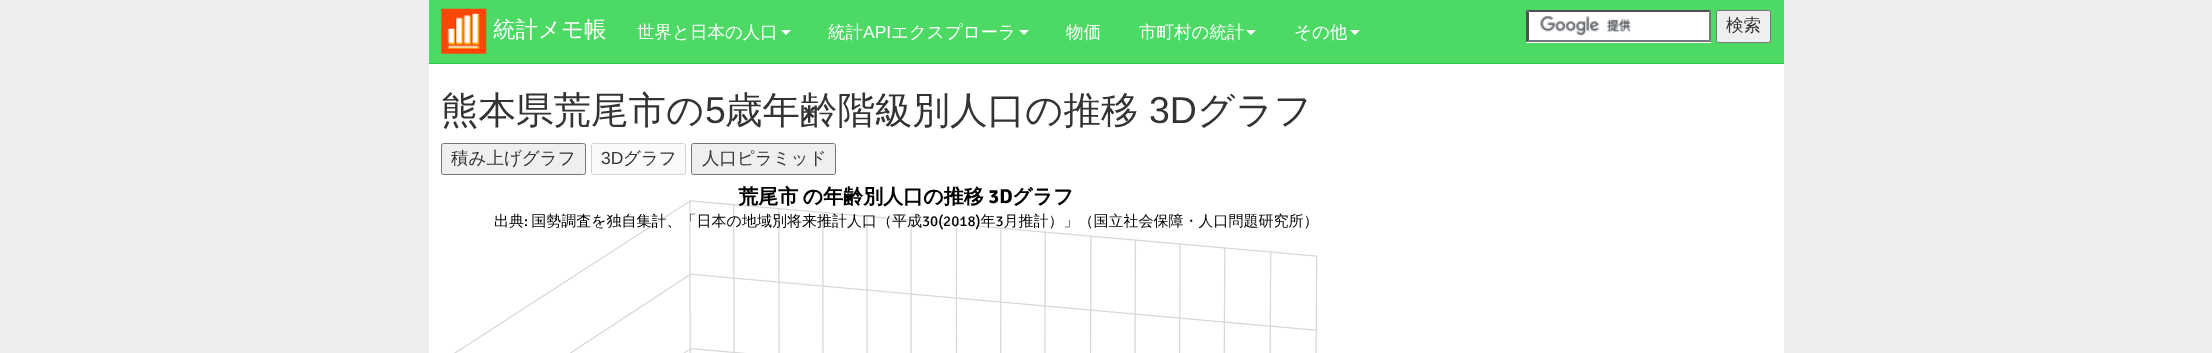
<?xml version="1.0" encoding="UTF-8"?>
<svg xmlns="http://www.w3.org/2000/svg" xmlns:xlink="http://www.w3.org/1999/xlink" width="2212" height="353">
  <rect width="100%" height="100%" fill="#eeeeee" />
  <rect x="429" y="64" width="1355" height="289" fill="#ffffff" />
  <rect x="429" width="1355" height="63" fill="#4cd964" />
  <rect x="429" y="63" width="1355" height="1" fill="#2ac845" />
  <image x="441" y="8" width="46" height="46" xlink:href="image1.png" />
  <path d="M 781 30 h 10 l -5 5 z" fill="#ffffff" />
  <path d="M 1019 30 h 10 l -5 5 z" fill="#ffffff" />
  <path d="M 1246 30 h 10 l -5 5 z" fill="#ffffff" />
  <path d="M 1350 30 h 10 l -5 5 z" fill="#ffffff" />
  <rect x="1526" y="10" width="185" height="33" fill="#ffffff" />
  <image x="1540" y="16" width="91" height="19" xlink:href="image2.png" />
  <path d="M 1526 10 h 185 l -2 2 h -180 z" fill="#4f4f4f" />
  <path d="M 1711 10 v 32.5 l -2 -2.5 v -27.5 z" fill="#767676" />
  <path d="M 1711 42 h -185 l 3 -2 h 180 z" fill="#767676" />
  <path d="M 1526 42.5 v -32.5 l 3 2.5 v 27.5 z" fill="#4f4f4f" />
  <rect x="1716.5" y="10.5" width="54" height="32" rx="2" fill="#efefef" stroke="#767676" />
  <rect x="441.5" y="143.5" width="144" height="31" rx="2" fill="#efefef" stroke="#767676" />
  <rect x="591.5" y="143.5" width="94" height="31" rx="2" fill="#fafafa" stroke="#d2d2d2" />
  <rect x="691.5" y="143.5" width="144" height="31" rx="2" fill="#efefef" stroke="#767676" />
  <image x="454" y="185" width="864" height="168" xlink:href="image3.png" />
  <text x="493" y="37" style="font-family: WenQuanYi Zen Hei; font-size: 22.5px; font-weight: 500; fill: #ffffff">統計メモ帳</text>
  <text x="637" y="38" style="font-family: WenQuanYi Zen Hei; font-size: 17.5px; font-weight: 500; fill: #ffffff">世界と日本の人口</text>
  <text x="828" y="38" style="font-family: WenQuanYi Zen Hei; font-size: 17.5px; font-weight: 500; fill: #ffffff">統計</text>
  <text x="863" y="38" style="font-family: Liberation Sans; font-size: 17.5px; fill: #ffffff">API</text>
  <text x="891" y="38" style="font-family: WenQuanYi Zen Hei; font-size: 17.5px; font-weight: 500; fill: #ffffff">エクスプローラ</text>
  <text x="1066" y="38" style="font-family: WenQuanYi Zen Hei; font-size: 17.5px; font-weight: 500; fill: #ffffff">物価</text>
  <text x="1139" y="38" style="font-family: WenQuanYi Zen Hei; font-size: 17.5px; font-weight: 500; fill: #ffffff">市町村の統計</text>
  <text x="1294" y="38" style="font-family: WenQuanYi Zen Hei; font-size: 17.5px; font-weight: 500; fill: #ffffff">その他</text>
  <text x="1726" y="31" style="font-family: WenQuanYi Zen Hei; font-size: 17.5px; font-weight: 500; fill: #333333">検索</text>
  <text x="441" y="123" style="font-family: WenQuanYi Zen Hei; font-size: 37.5px; font-weight: 500; fill: #333333">熊本県荒尾市の</text>
  <text x="705" y="123" style="font-family: Liberation Sans; font-size: 37.5px; fill: #333333">5</text>
  <text x="725" y="123" style="font-family: WenQuanYi Zen Hei; font-size: 37.5px; font-weight: 500; fill: #333333">歳年齢階級別人口の推移</text>
  <text x="1149" y="123" style="font-family: Liberation Sans; font-size: 37.5px; fill: #333333">3D</text>
  <text x="1197" y="123" style="font-family: WenQuanYi Zen Hei; font-size: 37.5px; font-weight: 500; fill: #333333">グラフ</text>
  <text x="451" y="164" style="font-family: WenQuanYi Zen Hei; font-size: 17.5px; font-weight: 500; fill: #333333">積み上げグラフ</text>
  <text x="601" y="164" style="font-family: Liberation Sans; font-size: 17.5px; fill: #333333">3D</text>
  <text x="623" y="164" style="font-family: WenQuanYi Zen Hei; font-size: 17.5px; font-weight: 500; fill: #333333">グラフ</text>
  <text x="702" y="164" style="font-family: WenQuanYi Zen Hei; font-size: 17.5px; font-weight: 500; fill: #333333">人口ピラミッド</text>
</svg>
